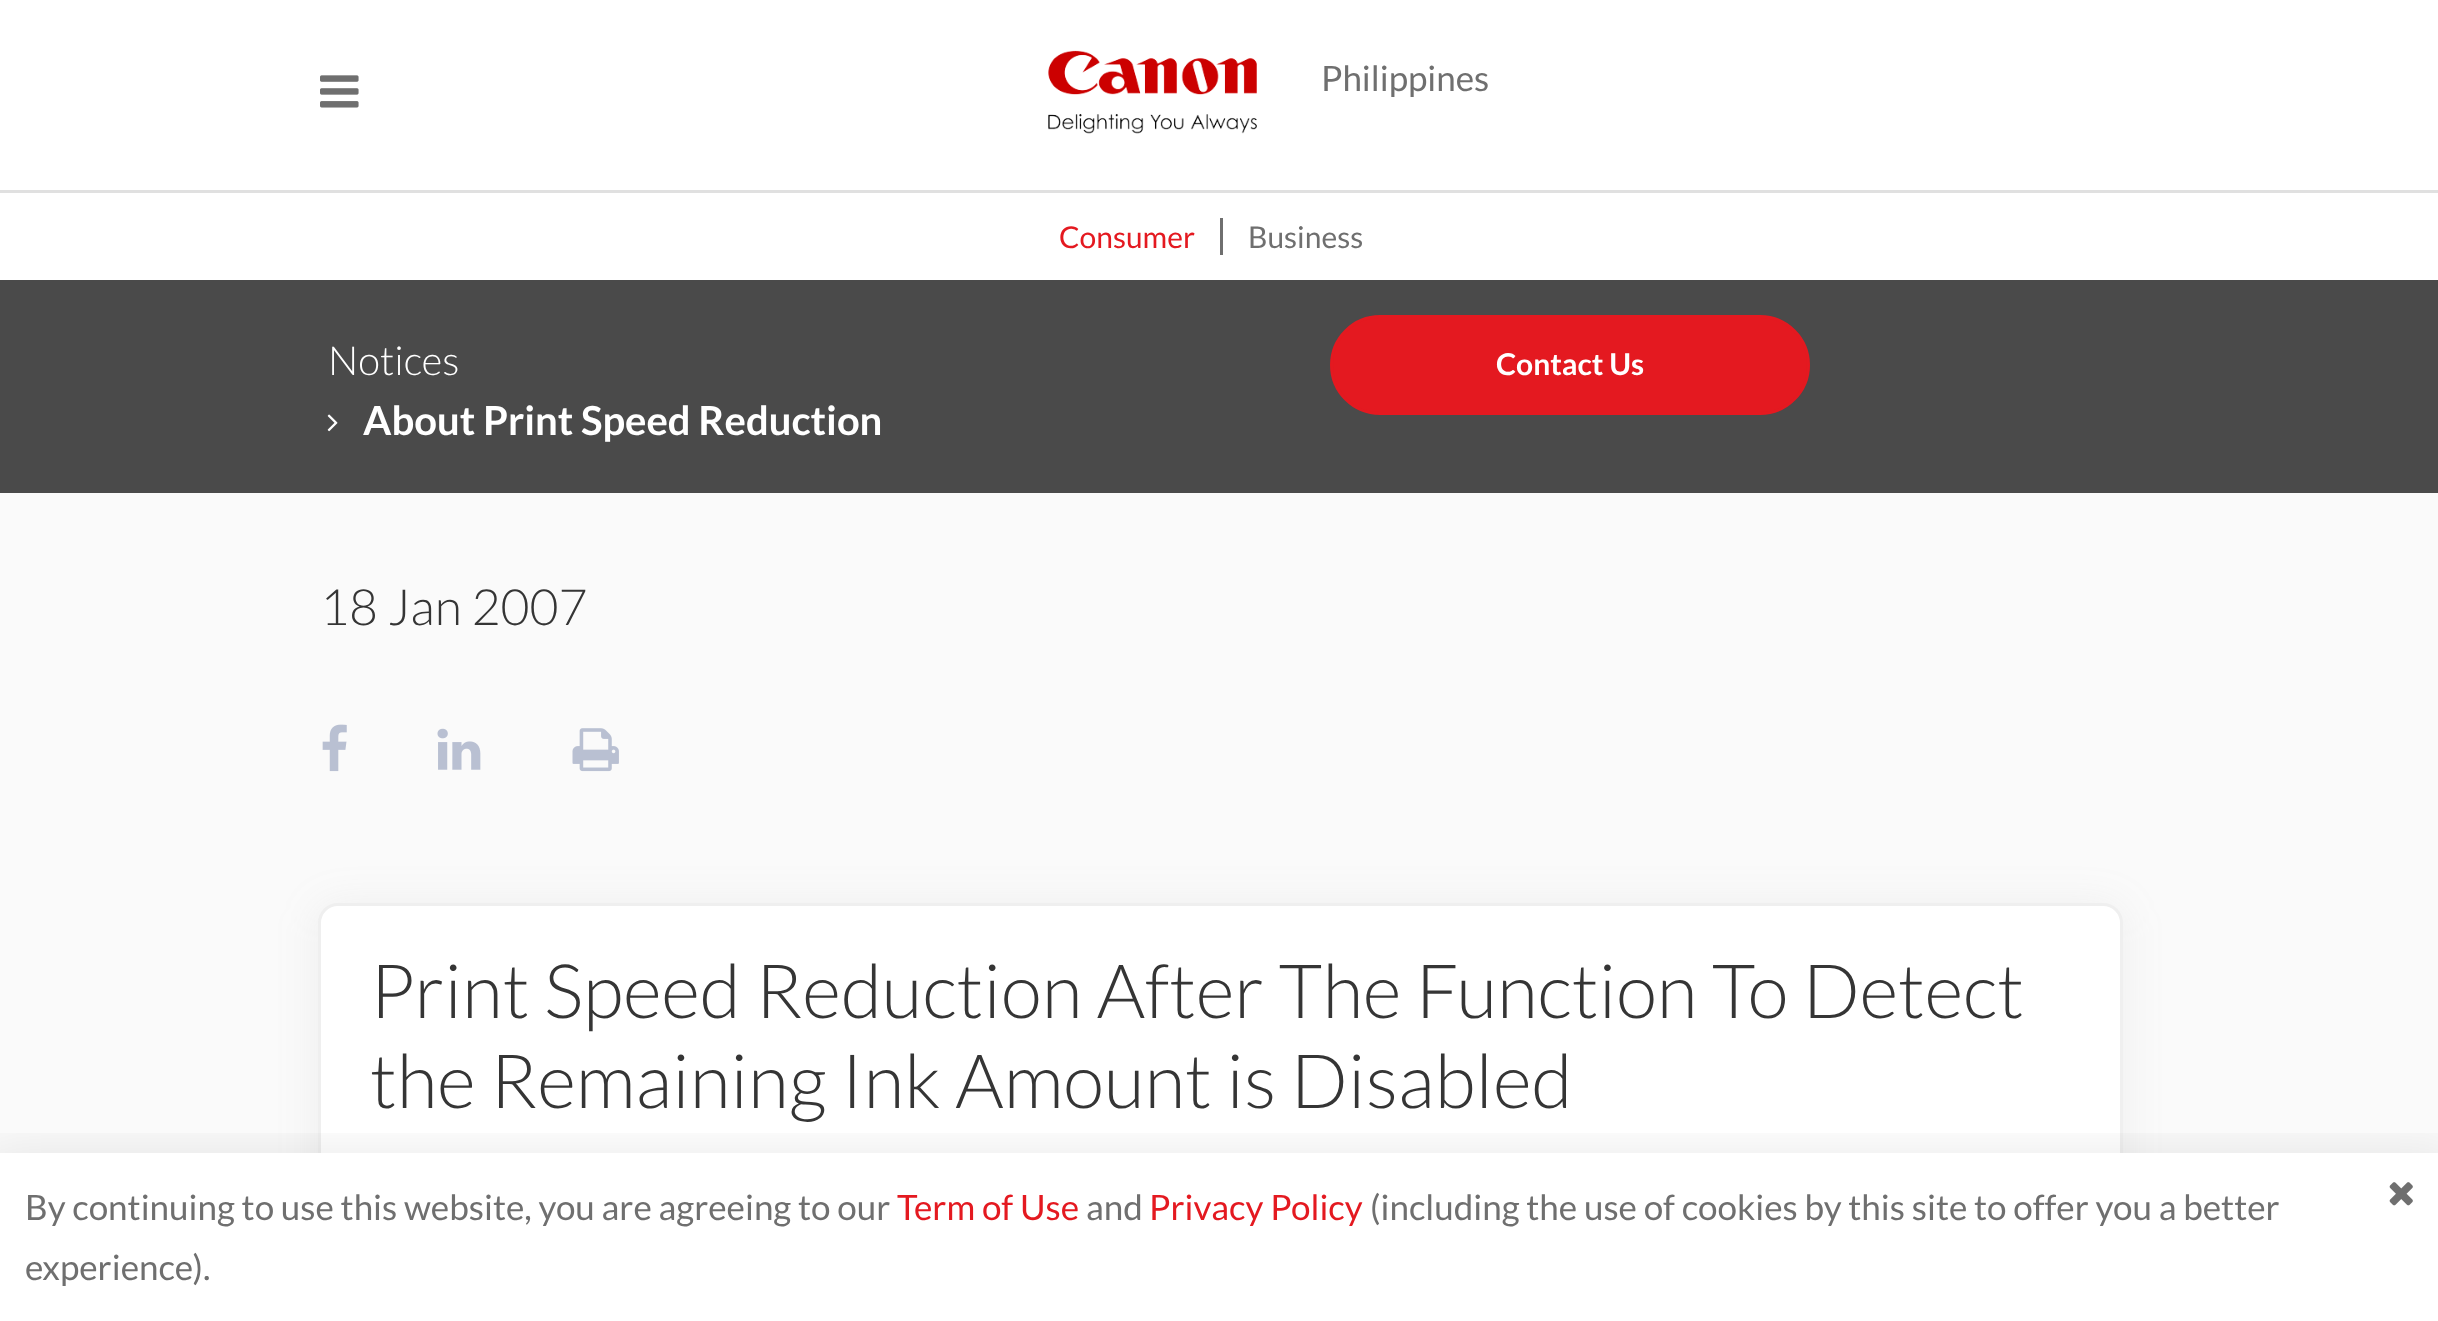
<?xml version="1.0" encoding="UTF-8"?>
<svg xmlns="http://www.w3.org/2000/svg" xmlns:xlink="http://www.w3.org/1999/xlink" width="2438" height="1321">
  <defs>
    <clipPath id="clip1"><rect x="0" y="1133" width="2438" height="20" /></clipPath>
  </defs>
  <rect width="100%" height="100%" fill="#fafafa" />
  <rect width="2438" height="190" fill="#ffffff" />
  <image x="320" y="75" width="39" height="33" xlink:href="image1.png" />
  <image x="1048" y="50" width="209" height="84" xlink:href="image2.png" />
  <rect y="193" width="2438" height="87" fill="#ffffff" />
  <rect y="190" width="2438" height="3" fill="#e0e0e0" />
  <rect x="1220" y="218" width="3" height="37" fill="#6f6f6f" />
  <rect y="280" width="2438" height="213" fill="#4a4a4a" />
  <image x="327" y="414" width="11" height="18" xlink:href="image3.png" />
  <rect x="1331.5" y="316.5" width="477" height="97" rx="48.5" fill="#e41920" stroke="#e41920" stroke-width="3" />
  <image x="322" y="724" width="25" height="48" xlink:href="image4.png" />
  <image x="437" y="728" width="44" height="42" xlink:href="image5.png" />
  <image x="572" y="728" width="47" height="44" xlink:href="image6.png" />
  <rect x="315" y="903" width="1810" height="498" rx="23" fill="#939393" fill-opacity="0.1" filter="blur(19px)" />
  <rect x="319.5" y="904.5" width="1802" height="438" rx="18.5" fill="#ffffff" stroke="#efefef" stroke-width="3" />
  <g clip-path="url(#clip1)">
    <rect x="-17" y="1160" width="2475" height="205" fill="#000000" fill-opacity="0.11" filter="blur(30px)" />
  </g>
  <rect y="1153" width="2438" height="168" fill="#ffffff" fill-opacity="0.95" />
  <image x="2389" y="1182" width="24" height="24" xlink:href="image7.png" />
  <text x="1321" y="91" style="font-family: Lato; font-size: 35px; fill: #6f6f6f">Philippines</text>
  <text x="1059" y="248" style="font-family: Lato; font-size: 30px; fill: #e41920">Consumer</text>
  <text x="1248" y="248" style="font-family: Lato; font-size: 30px; fill: #6f6f6f">Business</text>
  <text x="328" y="375" style="font-family: Lato; font-size: 40px; font-weight: 300; fill: #ffffff">Notices</text>
  <text x="363" y="435" style="font-family: Lato; font-size: 40px; font-weight: bold; fill: #ffffff">About Print Speed Reduction</text>
  <text x="1496" y="375" style="font-family: Lato; font-size: 30px; font-weight: bold; fill: #ffffff">Contact Us</text>
  <text x="320" y="625" style="font-family: Lato; font-size: 50px; font-weight: 300; fill: #353535">18 Jan 2007</text>
  <text x="370" y="1018" style="font-family: Lato; font-size: 75px; font-weight: 300; fill: #353535">Print Speed Reduction After The Function To Detect</text>
  <text x="370" y="1108" style="font-family: Lato; font-size: 75px; font-weight: 300; fill: #353535">the Remaining Ink Amount is Disabled</text>
  <text x="25" y="1220" style="font-family: Lato; font-size: 35px; fill: #6f6f6f">By continuing to use this website, you are agreeing to our</text>
  <text x="897" y="1220" style="font-family: Lato; font-size: 35px; fill: #e41920">Term of Use</text>
  <text x="1086" y="1220" style="font-family: Lato; font-size: 35px; fill: #6f6f6f">and</text>
  <text x="1149" y="1220" style="font-family: Lato; font-size: 35px; fill: #e41920">Privacy Policy</text>
  <text x="1370" y="1220" style="font-family: Lato; font-size: 35px; fill: #6f6f6f">(including the use of cookies by this site to offer you a better</text>
  <text x="25" y="1280" style="font-family: Lato; font-size: 35px; fill: #6f6f6f">experience).</text>
</svg>
